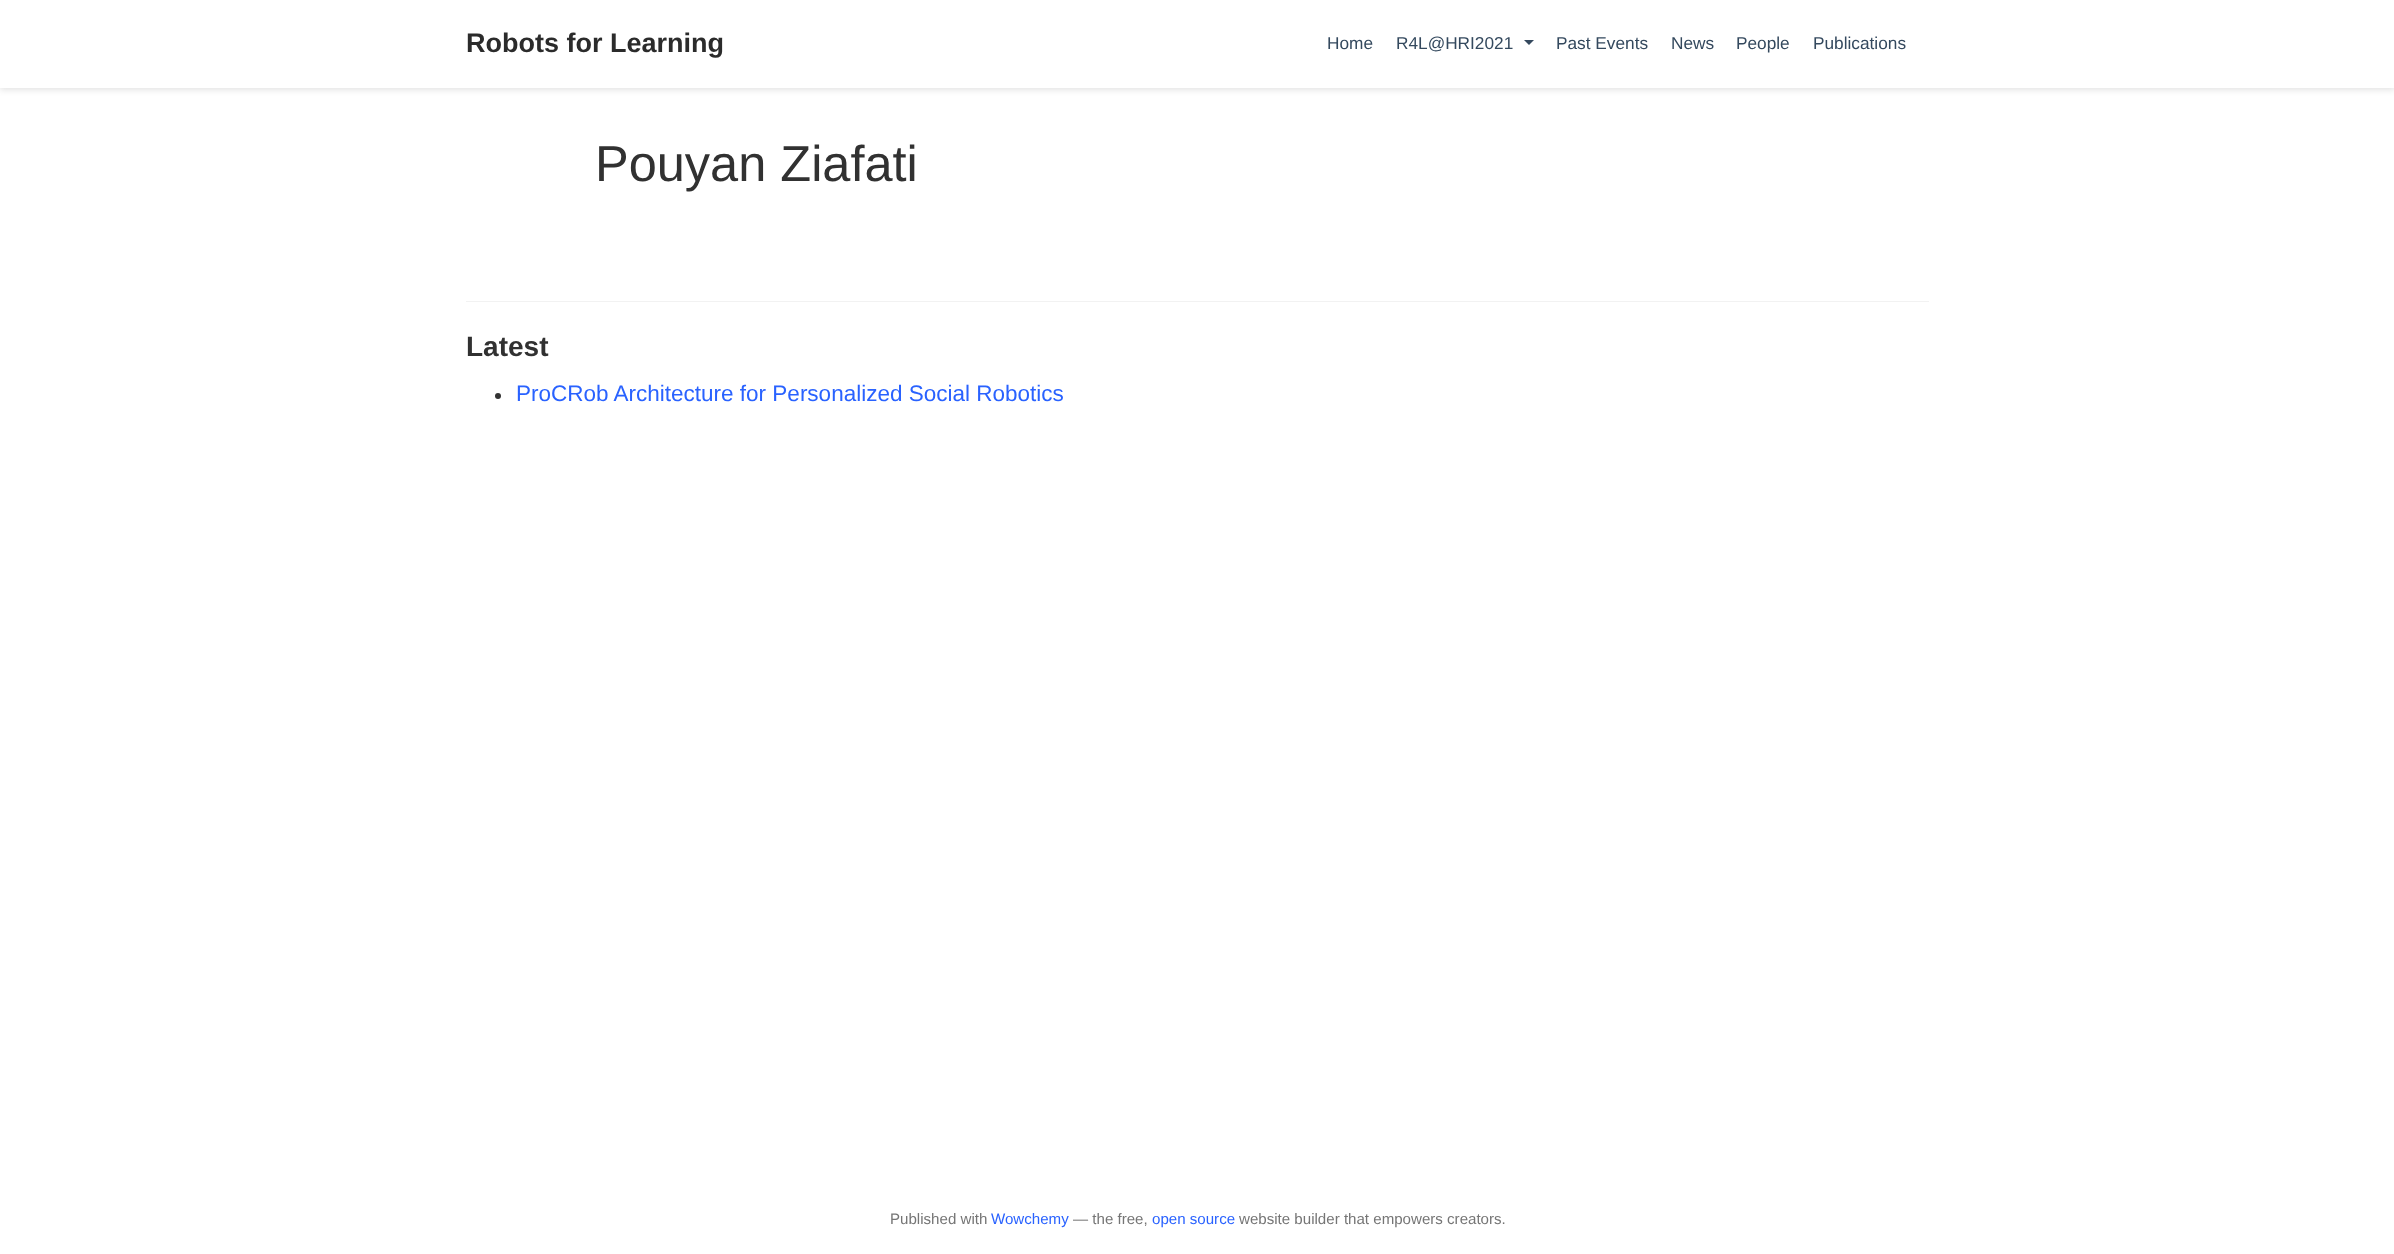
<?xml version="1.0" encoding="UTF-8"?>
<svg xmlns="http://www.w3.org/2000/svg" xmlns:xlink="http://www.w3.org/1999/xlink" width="2394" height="1254">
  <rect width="100%" height="100%" fill="#ffffff" />
  <rect y="3" width="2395" height="87" fill="#000000" fill-opacity="0.11" filter="blur(3px)" />
  <rect width="2394" height="88" fill="#ffffff" />
  <path d="M 1524 40 h 10 l -5 5 z" fill="#34495e" />
  <rect x="466" y="301" width="1463" height="1" fill="#f2f2f2" />
  <circle cx="498" cy="396" r="3" fill="#333333" />
  <text x="466" y="52" style="font-family: Liberation Sans; font-size: 27px; font-weight: bold; fill: #2b2b2b">Robots for Learning</text>
  <text x="1327" y="49" style="font-family: Liberation Sans; font-size: 17.25px; fill: #34495e">Home</text>
  <text x="1396" y="49" style="font-family: Liberation Sans; font-size: 17.25px; fill: #34495e">R4L@HRI2021</text>
  <text x="1556" y="49" style="font-family: Liberation Sans; font-size: 17.25px; fill: #34495e">Past Events</text>
  <text x="1671" y="49" style="font-family: Liberation Sans; font-size: 17.25px; fill: #34495e">News</text>
  <text x="1736" y="49" style="font-family: Liberation Sans; font-size: 17.25px; fill: #34495e">People</text>
  <text x="1813" y="49" style="font-family: Liberation Sans; font-size: 17.25px; fill: #34495e">Publications</text>
  <text x="595" y="181" style="font-family: Liberation Sans; font-size: 50.5px; fill: #313131">Pouyan Ziafati</text>
  <text x="466" y="356" style="font-family: Liberation Sans; font-size: 28px; font-weight: bold; fill: #313131">Latest</text>
  <text x="516" y="401" style="font-family: Liberation Sans; font-size: 22.5px; fill: #2962ff">ProCRob Architecture for Personalized Social Robotics</text>
  <text x="890" y="1224" style="font-family: Liberation Sans; font-size: 15.1px; fill: #757575">Published with</text>
  <text x="991" y="1224" style="font-family: Liberation Sans; font-size: 15.1px; fill: #2962ff">Wowchemy</text>
  <text x="1073" y="1224" style="font-family: Liberation Sans; font-size: 15.1px; fill: #757575">— the free,</text>
  <text x="1152" y="1224" style="font-family: Liberation Sans; font-size: 15.1px; fill: #2962ff">open source</text>
  <text x="1239" y="1224" style="font-family: Liberation Sans; font-size: 15.1px; fill: #757575">website builder that empowers creators.</text>
</svg>
